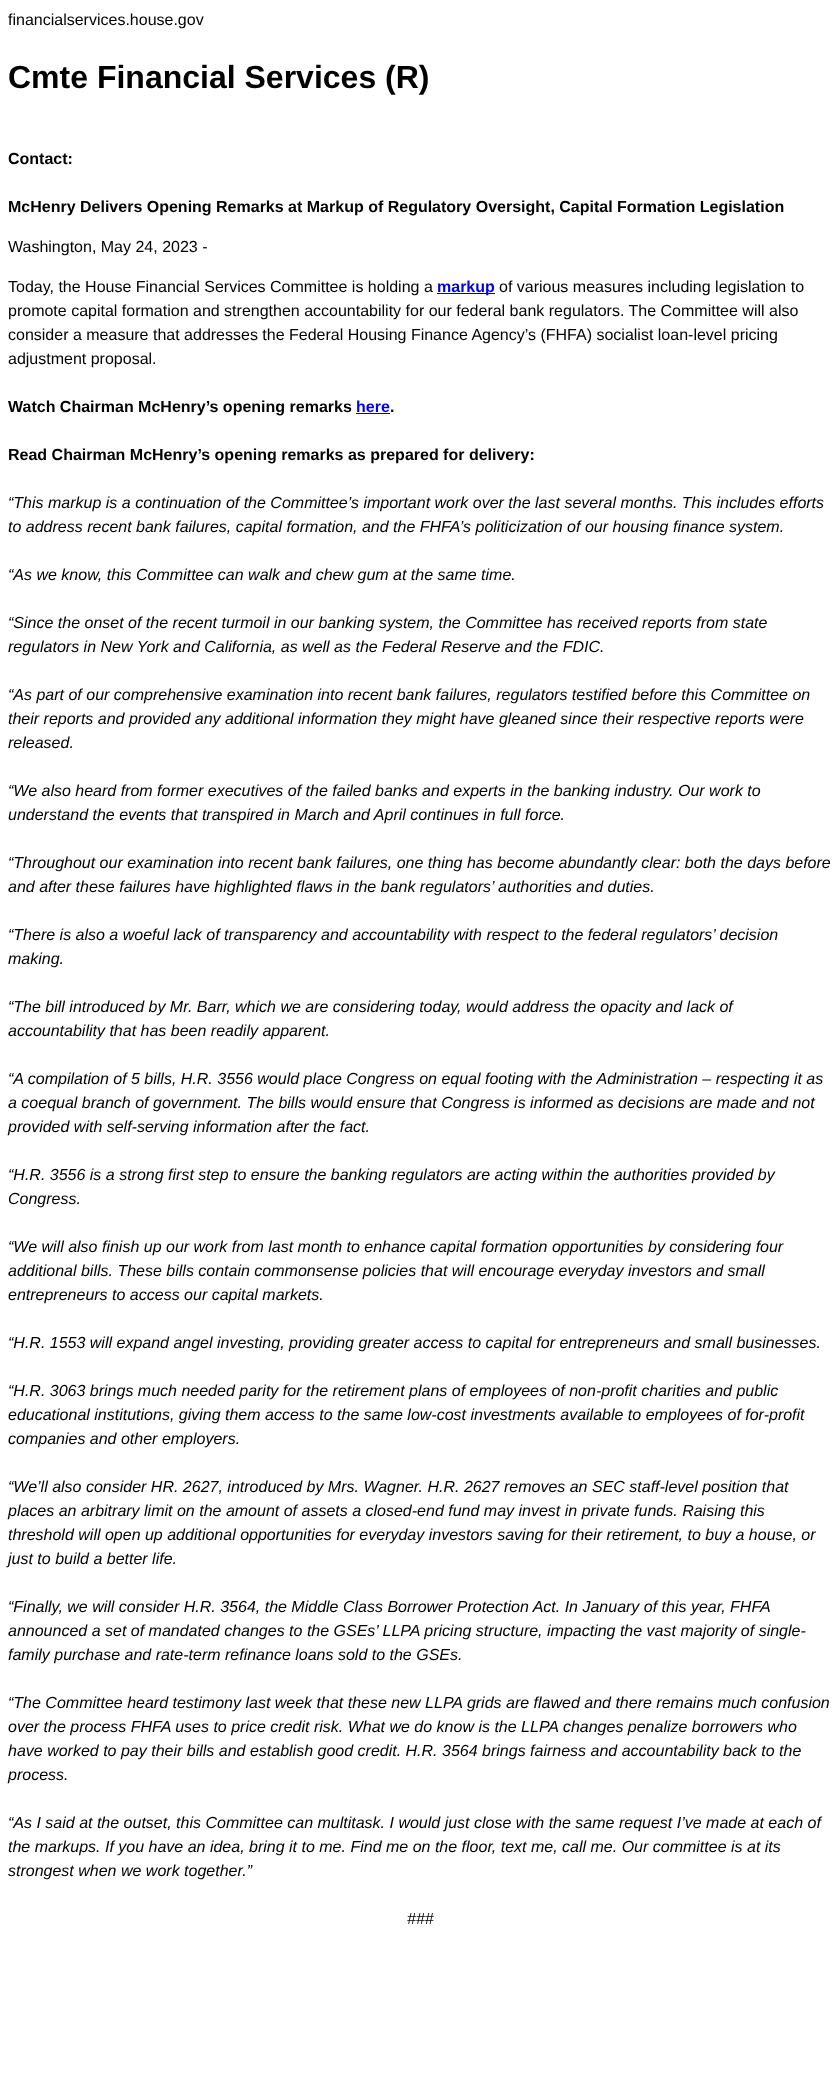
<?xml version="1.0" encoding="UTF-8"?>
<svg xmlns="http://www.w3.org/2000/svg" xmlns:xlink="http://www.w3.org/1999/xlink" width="840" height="2075">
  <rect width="100%" height="100%" fill="#ffffff" />
  <rect x="437" y="293" width="58" height="1" fill="#0000ee" />
  <rect x="356" y="413" width="34" height="1" fill="#0000ee" />
  <text x="8" y="25" style="font-family: Liberation Sans; font-size: 16px; fill: #000000">financialservices.house.gov</text>
  <text x="8" y="88" style="font-family: Liberation Sans; font-size: 32px; font-weight: bold; fill: #000000">Cmte Financial Services (R)</text>
  <text x="8" y="164" style="font-family: Liberation Sans; font-size: 16px; font-weight: bold; fill: #000000">Contact:</text>
  <text x="8" y="212" style="font-family: Liberation Sans; font-size: 16px; font-weight: bold; fill: #000000">McHenry Delivers Opening Remarks at Markup of Regulatory Oversight, Capital Formation Legislation</text>
  <text x="8" y="252" style="font-family: Liberation Sans; font-size: 16px; fill: #000000">Washington, May 24, 2023 -</text>
  <text x="8" y="292" style="font-family: Liberation Sans; font-size: 16px; fill: #000000">Today, the House Financial Services Committee is holding a</text>
  <text x="437" y="292" style="font-family: Liberation Sans; font-size: 16px; font-weight: bold; fill: #0000ee">markup</text>
  <text x="499" y="292" style="font-family: Liberation Sans; font-size: 16px; fill: #000000">of various measures including legislation to</text>
  <text x="8" y="316" style="font-family: Liberation Sans; font-size: 16px; fill: #000000">promote capital formation and strengthen accountability for our federal bank regulators. The Committee will also</text>
  <text x="8" y="340" style="font-family: Liberation Sans; font-size: 16px; fill: #000000">consider a measure that addresses the Federal Housing Finance Agency’s (FHFA) socialist loan-level pricing</text>
  <text x="8" y="364" style="font-family: Liberation Sans; font-size: 16px; fill: #000000">adjustment proposal.</text>
  <text x="8" y="412" style="font-family: Liberation Sans; font-size: 16px; font-weight: bold; fill: #000000">Watch Chairman McHenry’s opening remarks</text>
  <text x="356" y="412" style="font-family: Liberation Sans; font-size: 16px; font-weight: bold; fill: #0000ee">here</text>
  <text x="390" y="412" style="font-family: Liberation Sans; font-size: 16px; font-weight: bold; fill: #000000">.</text>
  <text x="8" y="460" style="font-family: Liberation Sans; font-size: 16px; font-weight: bold; fill: #000000">Read Chairman McHenry’s opening remarks as prepared for delivery:</text>
  <text x="8" y="508" style="font-family: Liberation Sans; font-size: 16px; font-style: italic; fill: #000000">“This markup is a continuation of the Committee’s important work over the last several months. This includes efforts</text>
  <text x="8" y="532" style="font-family: Liberation Sans; font-size: 16px; font-style: italic; fill: #000000">to address recent bank failures, capital formation, and the FHFA’s politicization of our housing finance system.</text>
  <text x="8" y="580" style="font-family: Liberation Sans; font-size: 16px; font-style: italic; fill: #000000">“As we know, this Committee can walk and chew gum at the same time.</text>
  <text x="8" y="628" style="font-family: Liberation Sans; font-size: 16px; font-style: italic; fill: #000000">“Since the onset of the recent turmoil in our banking system, the Committee has received reports from state</text>
  <text x="8" y="652" style="font-family: Liberation Sans; font-size: 16px; font-style: italic; fill: #000000">regulators in New York and California, as well as the Federal Reserve and the FDIC.</text>
  <text x="8" y="700" style="font-family: Liberation Sans; font-size: 16px; font-style: italic; fill: #000000">“As part of our comprehensive examination into recent bank failures, regulators testified before this Committee on</text>
  <text x="8" y="724" style="font-family: Liberation Sans; font-size: 16px; font-style: italic; fill: #000000">their reports and provided any additional information they might have gleaned since their respective reports were</text>
  <text x="8" y="748" style="font-family: Liberation Sans; font-size: 16px; font-style: italic; fill: #000000">released.</text>
  <text x="8" y="796" style="font-family: Liberation Sans; font-size: 16px; font-style: italic; fill: #000000">“We also heard from former executives of the failed banks and experts in the banking industry. Our work to</text>
  <text x="8" y="820" style="font-family: Liberation Sans; font-size: 16px; font-style: italic; fill: #000000">understand the events that transpired in March and April continues in full force.</text>
  <text x="8" y="868" style="font-family: Liberation Sans; font-size: 16px; font-style: italic; fill: #000000">“Throughout our examination into recent bank failures, one thing has become abundantly clear: both the days before</text>
  <text x="8" y="892" style="font-family: Liberation Sans; font-size: 16px; font-style: italic; fill: #000000">and after these failures have highlighted flaws in the bank regulators’ authorities and duties.</text>
  <text x="8" y="940" style="font-family: Liberation Sans; font-size: 16px; font-style: italic; fill: #000000">“There is also a woeful lack of transparency and accountability with respect to the federal regulators’ decision</text>
  <text x="8" y="964" style="font-family: Liberation Sans; font-size: 16px; font-style: italic; fill: #000000">making.</text>
  <text x="8" y="1012" style="font-family: Liberation Sans; font-size: 16px; font-style: italic; fill: #000000">“The bill introduced by Mr. Barr, which we are considering today, would address the opacity and lack of</text>
  <text x="8" y="1036" style="font-family: Liberation Sans; font-size: 16px; font-style: italic; fill: #000000">accountability that has been readily apparent.</text>
  <text x="8" y="1084" style="font-family: Liberation Sans; font-size: 16px; font-style: italic; fill: #000000">“A compilation of 5 bills, H.R. 3556 would place Congress on equal footing with the Administration – respecting it as</text>
  <text x="8" y="1108" style="font-family: Liberation Sans; font-size: 16px; font-style: italic; fill: #000000">a coequal branch of government. The bills would ensure that Congress is informed as decisions are made and not</text>
  <text x="8" y="1132" style="font-family: Liberation Sans; font-size: 16px; font-style: italic; fill: #000000">provided with self-serving information after the fact.</text>
  <text x="8" y="1180" style="font-family: Liberation Sans; font-size: 16px; font-style: italic; fill: #000000">“H.R. 3556 is a strong first step to ensure the banking regulators are acting within the authorities provided by</text>
  <text x="8" y="1204" style="font-family: Liberation Sans; font-size: 16px; font-style: italic; fill: #000000">Congress.</text>
  <text x="8" y="1252" style="font-family: Liberation Sans; font-size: 16px; font-style: italic; fill: #000000">“We will also finish up our work from last month to enhance capital formation opportunities by considering four</text>
  <text x="8" y="1276" style="font-family: Liberation Sans; font-size: 16px; font-style: italic; fill: #000000">additional bills. These bills contain commonsense policies that will encourage everyday investors and small</text>
  <text x="8" y="1300" style="font-family: Liberation Sans; font-size: 16px; font-style: italic; fill: #000000">entrepreneurs to access our capital markets.</text>
  <text x="8" y="1348" style="font-family: Liberation Sans; font-size: 16px; font-style: italic; fill: #000000">“H.R. 1553 will expand angel investing, providing greater access to capital for entrepreneurs and small businesses.</text>
  <text x="8" y="1396" style="font-family: Liberation Sans; font-size: 16px; font-style: italic; fill: #000000">“H.R. 3063 brings much needed parity for the retirement plans of employees of non-profit charities and public</text>
  <text x="8" y="1420" style="font-family: Liberation Sans; font-size: 16px; font-style: italic; fill: #000000">educational institutions, giving them access to the same low-cost investments available to employees of for-profit</text>
  <text x="8" y="1444" style="font-family: Liberation Sans; font-size: 16px; font-style: italic; fill: #000000">companies and other employers.</text>
  <text x="8" y="1492" style="font-family: Liberation Sans; font-size: 16px; font-style: italic; fill: #000000">“We’ll also consider HR. 2627, introduced by Mrs. Wagner. H.R. 2627 removes an SEC staff-level position that</text>
  <text x="8" y="1516" style="font-family: Liberation Sans; font-size: 16px; font-style: italic; fill: #000000">places an arbitrary limit on the amount of assets a closed-end fund may invest in private funds. Raising this</text>
  <text x="8" y="1540" style="font-family: Liberation Sans; font-size: 16px; font-style: italic; fill: #000000">threshold will open up additional opportunities for everyday investors saving for their retirement, to buy a house, or</text>
  <text x="8" y="1564" style="font-family: Liberation Sans; font-size: 16px; font-style: italic; fill: #000000">just to build a better life.</text>
  <text x="8" y="1612" style="font-family: Liberation Sans; font-size: 16px; font-style: italic; fill: #000000">“Finally, we will consider H.R. 3564, the Middle Class Borrower Protection Act. In January of this year, FHFA</text>
  <text x="8" y="1636" style="font-family: Liberation Sans; font-size: 16px; font-style: italic; fill: #000000">announced a set of mandated changes to the GSEs’ LLPA pricing structure, impacting the vast majority of single-</text>
  <text x="8" y="1660" style="font-family: Liberation Sans; font-size: 16px; font-style: italic; fill: #000000">family purchase and rate-term refinance loans sold to the GSEs.</text>
  <text x="8" y="1708" style="font-family: Liberation Sans; font-size: 16px; font-style: italic; fill: #000000">“The Committee heard testimony last week that these new LLPA grids are flawed and there remains much confusion</text>
  <text x="8" y="1732" style="font-family: Liberation Sans; font-size: 16px; font-style: italic; fill: #000000">over the process FHFA uses to price credit risk. What we do know is the LLPA changes penalize borrowers who</text>
  <text x="8" y="1756" style="font-family: Liberation Sans; font-size: 16px; font-style: italic; fill: #000000">have worked to pay their bills and establish good credit. H.R. 3564 brings fairness and accountability back to the</text>
  <text x="8" y="1780" style="font-family: Liberation Sans; font-size: 16px; font-style: italic; fill: #000000">process.</text>
  <text x="8" y="1828" style="font-family: Liberation Sans; font-size: 16px; font-style: italic; fill: #000000">“As I said at the outset, this Committee can multitask. I would just close with the same request I’ve made at each of</text>
  <text x="8" y="1852" style="font-family: Liberation Sans; font-size: 16px; font-style: italic; fill: #000000">the markups. If you have an idea, bring it to me. Find me on the floor, text me, call me. Our committee is at its</text>
  <text x="8" y="1876" style="font-family: Liberation Sans; font-size: 16px; font-style: italic; fill: #000000">strongest when we work together.”</text>
  <text x="407" y="1924" style="font-family: Liberation Sans; font-size: 16px; font-style: italic; fill: #000000">###</text>
</svg>
